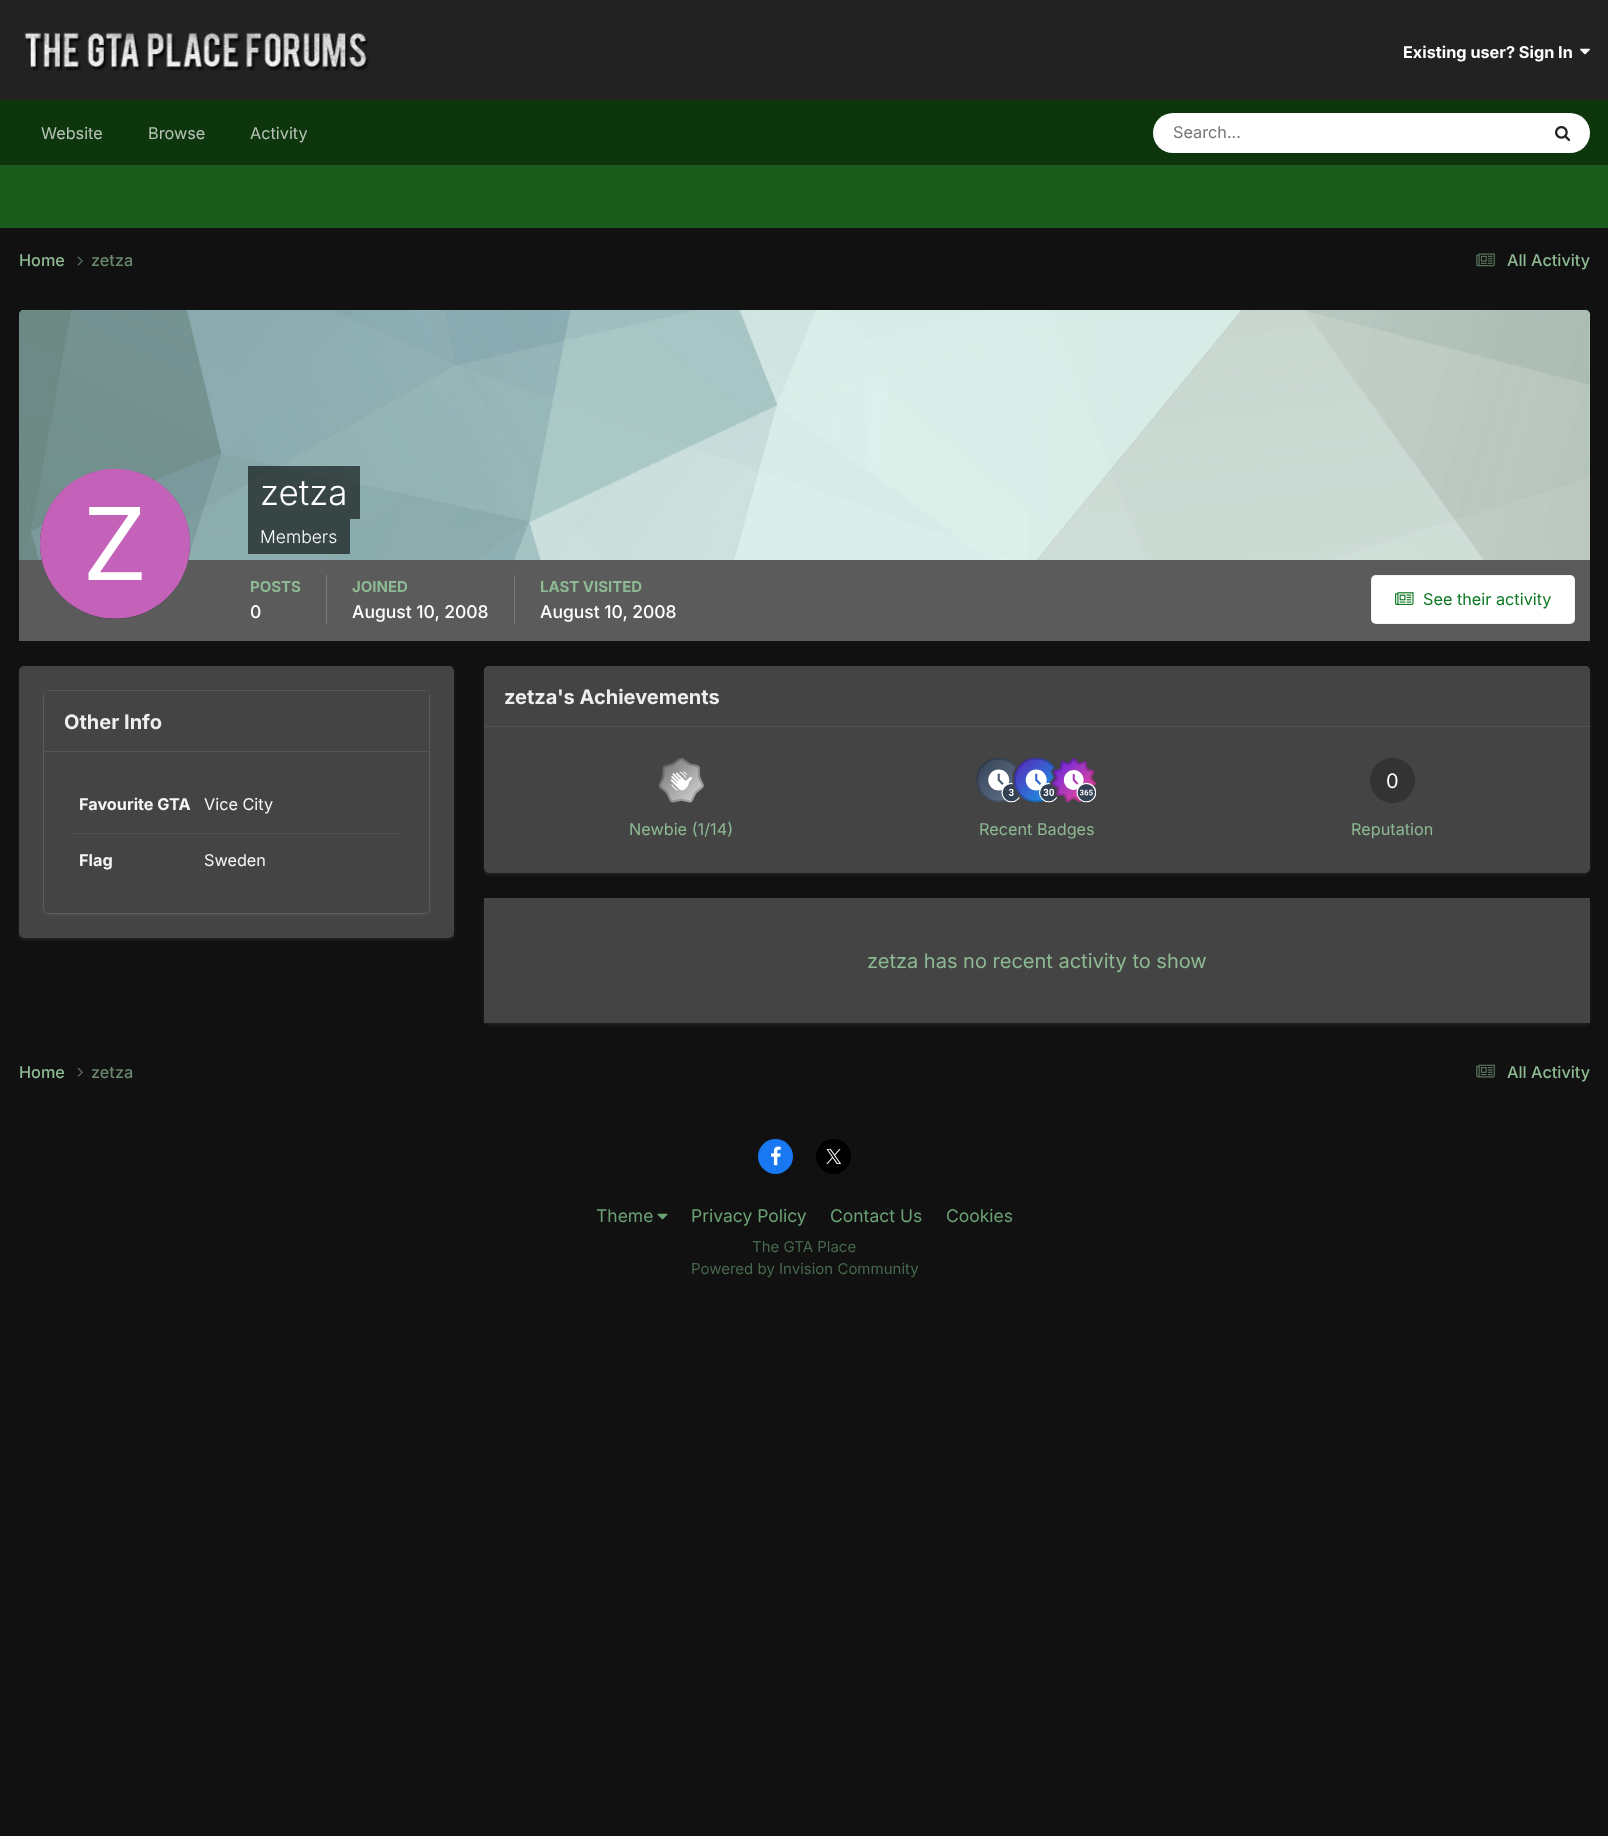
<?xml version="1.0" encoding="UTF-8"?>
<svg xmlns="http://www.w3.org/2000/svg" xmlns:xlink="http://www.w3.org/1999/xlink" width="1608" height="1836">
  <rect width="100%" height="100%" fill="#111111" />
  <rect width="1608" height="100" fill="#222222" />
  <image x="24" y="32" width="345" height="39" xlink:href="image1.png" />
  <image x="1580" y="48" width="10" height="7" xlink:href="image2.png" />
  <rect y="100" width="1608" height="65" fill="#0e360d" />
  <rect x="1153" y="113" width="437" height="40" rx="20" fill="#ffffff" />
  <image x="1555" y="126" width="16" height="15" xlink:href="image3.png" />
  <rect y="165" width="1608" height="63" fill="#1b5b1b" />
  <image x="77" y="256" width="6" height="10" xlink:href="image4.png" />
  <image x="1476" y="253" width="19" height="14" xlink:href="image5.png" />
  <path d="M 24 310 h 1561 c 3 0 5 2 5 5 v 245 h -1571 v -245 c 0 -3 2 -5 5 -5 z" fill="#99ffeb" />
  <image x="19" y="310" width="1571" height="250" xlink:href="image6.png" />
  <rect x="19" y="560" width="1571" height="81" fill="#5b5b5b" />
  <circle cx="115" cy="544" r="75" fill="#444444" />
  <image x="40" y="469" width="150" height="150" xlink:href="image7.png" />
  <rect x="248" y="466" width="112" height="53" fill="#000000" fill-opacity="0.6" />
  <rect x="248" y="519" width="102" height="35" fill="#000000" fill-opacity="0.6" />
  <rect x="326" y="575" width="1" height="49" fill="#7c7c7c" />
  <rect x="514" y="575" width="1" height="49" fill="#7c7c7c" />
  <rect x="1371" y="575" width="204" height="49" rx="5" fill="#ffffff" />
  <rect x="1371.5" y="575.5" width="203" height="48" rx="4.5" fill="none" stroke="#0e7923" stroke-opacity="0.07" />
  <image x="1395" y="592" width="19" height="13" xlink:href="image8.png" />
  <rect x="20" y="670" width="433" height="269" rx="4" fill="#edf7ef" fill-opacity="0.1" filter="blur(2.5px)" />
  <rect x="19" y="666" width="435" height="272" rx="5" fill="#444444" />
  <rect x="45" y="695" width="383" height="219" rx="4" fill="#edf7ef" fill-opacity="0.1" filter="blur(2.5px)" />
  <rect x="43.5" y="690.5" width="386" height="223" rx="5.5" fill="none" stroke="#8db993" stroke-opacity="0.2" />
  <rect x="44" y="691" width="385" height="222" rx="5" fill="#444444" />
  <path d="M 49 691 h 375 c 3 0 5 2 5 5 v 57 h -385 v -57 c 0 -3 2 -5 5 -5 z" fill="#444444" />
  <rect x="44" y="751" width="385" height="1" fill="#4f5650" />
  <rect x="69" y="833" width="335" height="1" fill="#4b504c" />
  <rect x="485" y="670" width="1104" height="204" rx="4" fill="#edf7ef" fill-opacity="0.1" filter="blur(2.5px)" />
  <rect x="484" y="666" width="1106" height="207" rx="5" fill="#444444" />
  <path d="M 489 666 h 1096 c 3 0 5 2 5 5 v 57 h -1106 v -57 c 0 -3 2 -5 5 -5 z" fill="#444444" />
  <rect x="484" y="726" width="1106" height="1" fill="#4f5650" />
  <image x="659" y="758" width="45" height="45" xlink:href="image9.png" />
  <image x="976" y="758" width="45" height="45" xlink:href="image10.png" />
  <image x="1012" y="758" width="47" height="45" xlink:href="image11.png" />
  <image x="1049" y="758" width="47" height="45" xlink:href="image12.png" />
  <circle cx="1392.5" cy="780.5" r="22.5" fill="#333333" />
  <rect x="485" y="901" width="1104" height="123" rx="4" fill="#edf7ef" fill-opacity="0.1" filter="blur(2.5px)" />
  <rect x="484" y="898" width="1106" height="125" fill="#444444" />
  <image x="77" y="1067" width="6" height="10" xlink:href="image13.png" />
  <image x="1476" y="1064" width="19" height="14" xlink:href="image14.png" />
  <circle cx="775.5" cy="1156.5" r="17.5" fill="#1778f2" />
  <image x="771" y="1146" width="10" height="20" xlink:href="image15.png" />
  <circle cx="833.5" cy="1156.5" r="17.5" fill="#000000" />
  <image x="826" y="1149" width="15" height="15" xlink:href="image16.png" />
  <image x="657" y="1213" width="11" height="7" xlink:href="image17.png" />
  <text x="1403" y="58" style="font-family: Inter; font-size: 16.25px; font-weight: bold; fill: #ffffff">Existing user? Sign In</text>
  <text x="41" y="139" style="font-family: Inter; font-size: 16.25px; fill: #b7c3b6">Website</text>
  <text x="148" y="139" style="font-family: Inter; font-size: 16.25px; fill: #b7c3b6">Browse</text>
  <text x="250" y="139" style="font-family: Inter; font-size: 16.25px; fill: #b7c3b6">Activity</text>
  <text x="1173" y="138" style="font-family: Inter; font-size: 16.25px; fill: #757575">Search...</text>
  <text x="19" y="266" style="font-family: Inter; font-size: 16.25px; font-weight: 500; fill: #8db993">Home</text>
  <text x="91" y="266" style="font-family: Inter; font-size: 16.25px; font-weight: 500; fill: #68876c">zetza</text>
  <text x="1507" y="266" style="font-family: Inter; font-size: 16.25px; font-weight: 500; fill: #8db993">All Activity</text>
  <text x="260" y="505" style="font-family: Inter; font-size: 35px; font-weight: 300; fill: #ffffff">zetza</text>
  <text x="260" y="543" style="font-family: Inter; font-size: 17.5px; font-weight: 300; fill: #ffffff">Members</text>
  <text x="250" y="592" style="font-family: Inter; font-size: 15px; font-weight: bold; fill: #8db993">POSTS</text>
  <text x="250" y="618" style="font-family: Inter; font-size: 17.5px; font-weight: 500; fill: #ffffff">0</text>
  <text x="352" y="592" style="font-family: Inter; font-size: 15px; font-weight: bold; fill: #8db993">JOINED</text>
  <text x="352" y="618" style="font-family: Inter; font-size: 17.5px; font-weight: 500; fill: #ffffff">August 10, 2008</text>
  <text x="540" y="592" style="font-family: Inter; font-size: 15px; font-weight: bold; fill: #8db993">LAST VISITED</text>
  <text x="540" y="618" style="font-family: Inter; font-size: 17.5px; font-weight: 500; fill: #ffffff">August 10, 2008</text>
  <text x="1423" y="605" style="font-family: Inter; font-size: 16.25px; fill: #0e7923">See their activity</text>
  <text x="64" y="729" style="font-family: Inter; font-size: 20px; font-weight: bold; fill: #eeeeee">Other Info</text>
  <text x="79" y="810" style="font-family: Inter; font-size: 16.25px; font-weight: bold; fill: #f3f6f4">Favourite GTA</text>
  <text x="204" y="810" style="font-family: Inter; font-size: 16.25px; fill: #f3f6f4">Vice City</text>
  <text x="79" y="866" style="font-family: Inter; font-size: 16.25px; font-weight: bold; fill: #f3f6f4">Flag</text>
  <text x="204" y="866" style="font-family: Inter; font-size: 16.25px; fill: #f3f6f4">Sweden</text>
  <text x="504" y="704" style="font-family: Inter; font-size: 20px; font-weight: bold; fill: #eeeeee">zetza's Achievements</text>
  <text x="629" y="835" style="font-family: Inter; font-size: 16.25px; fill: #8db993">Newbie (1/14)</text>
  <text x="979" y="835" style="font-family: Inter; font-size: 16.25px; fill: #8db993">Recent Badges</text>
  <text x="1386" y="788" style="font-family: Inter; font-size: 20px; fill: #ffffff">0</text>
  <text x="1351" y="835" style="font-family: Inter; font-size: 16.25px; fill: #8db993">Reputation</text>
  <text x="867" y="968" style="font-family: Inter; font-size: 20px; fill: #8db993">zetza has no recent activity to show</text>
  <text x="19" y="1078" style="font-family: Inter; font-size: 16.25px; font-weight: 500; fill: #8db993">Home</text>
  <text x="91" y="1078" style="font-family: Inter; font-size: 16.25px; font-weight: 500; fill: #68876c">zetza</text>
  <text x="1507" y="1078" style="font-family: Inter; font-size: 16.25px; font-weight: 500; fill: #8db993">All Activity</text>
  <text x="596" y="1222" style="font-family: Inter; font-size: 17.5px; fill: #6ba274">Theme</text>
  <text x="691" y="1222" style="font-family: Inter; font-size: 17.5px; fill: #6ba274">Privacy Policy</text>
  <text x="830" y="1222" style="font-family: Inter; font-size: 17.5px; fill: #6ba274">Contact Us</text>
  <text x="946" y="1222" style="font-family: Inter; font-size: 17.5px; fill: #6ba274">Cookies</text>
  <text x="752" y="1252" style="font-family: Inter; font-size: 15px; fill: #47684c">The GTA Place</text>
  <text x="691" y="1274" style="font-family: Inter; font-size: 15px; fill: #47684c">Powered by Invision Community</text>
</svg>
